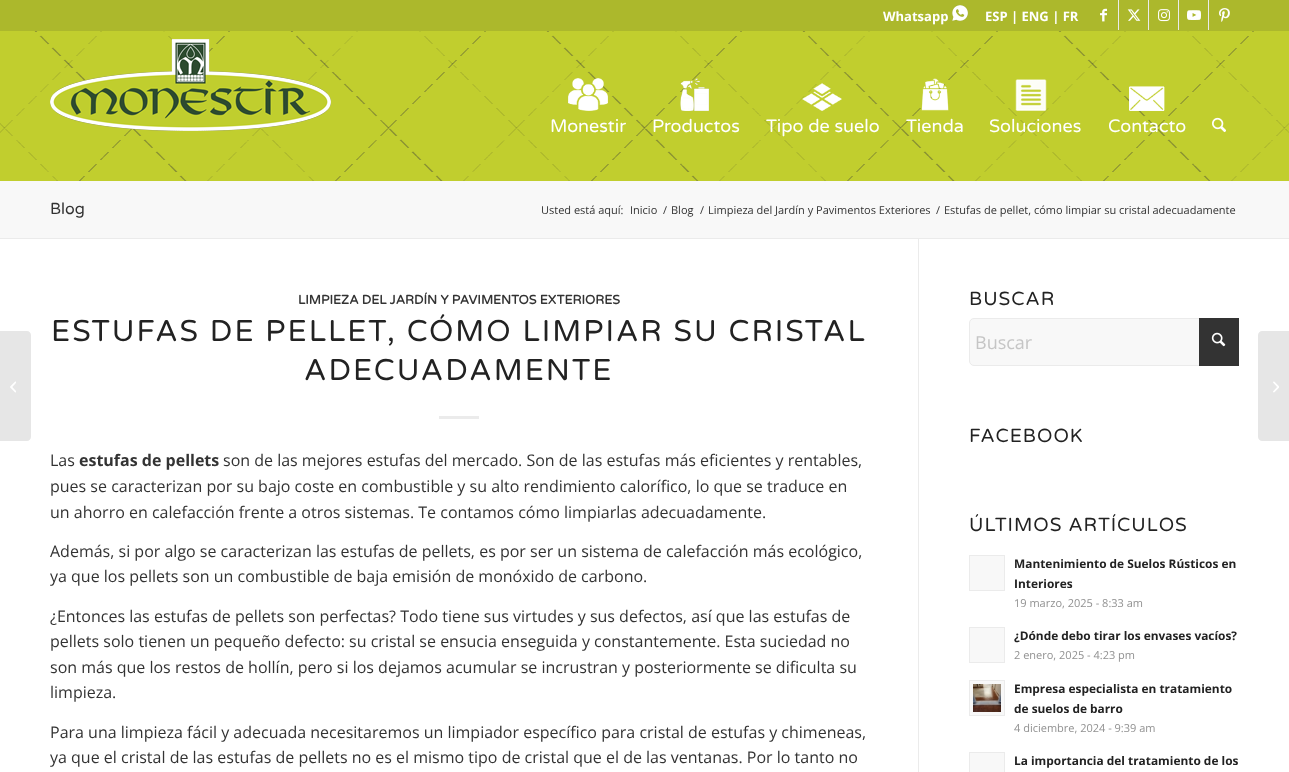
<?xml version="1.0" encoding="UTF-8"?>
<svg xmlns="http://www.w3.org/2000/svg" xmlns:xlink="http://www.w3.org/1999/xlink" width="1289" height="772">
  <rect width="100%" height="100%" fill="#f8f8f8" />
  <rect width="1289" height="31" fill="#acb82c" />
  <image x="952" y="5" width="16" height="16" xlink:href="image1.png" />
  <rect x="1118" width="1" height="30" fill="#ebebeb" />
  <image x="1100" y="8" width="7" height="14" xlink:href="image2.png" />
  <rect x="1148" width="1" height="30" fill="#ebebeb" />
  <image x="1127" y="9" width="14" height="12" xlink:href="image3.png" />
  <rect x="1178" width="1" height="30" fill="#ebebeb" />
  <image x="1158" y="9" width="12" height="13" xlink:href="image4.png" />
  <rect x="1208" width="1" height="30" fill="#ebebeb" />
  <image x="1187" y="10" width="14" height="10" xlink:href="image5.png" />
  <image x="1219" y="8" width="11" height="14" xlink:href="image6.png" />
  <rect y="31" width="1289" height="150" fill="#c1ce2e" />
  <image x="0" y="31" width="1289" height="150" xlink:href="image7.png" />
  <image x="50" y="39" width="281" height="92" xlink:href="image8.png" />
  <image x="568" y="78" width="40" height="33" xlink:href="image9.png" />
  <image x="680" y="78" width="29" height="33" xlink:href="image10.png" />
  <image x="802" y="83" width="40" height="28" xlink:href="image11.png" />
  <image x="921" y="78" width="28" height="33" xlink:href="image12.png" />
  <image x="1015" y="79" width="32" height="32" xlink:href="image13.png" />
  <image x="1129" y="86" width="36" height="25" xlink:href="image14.png" />
  <image x="1212" y="117" width="14" height="16" xlink:href="image15.png" />
  <rect y="239" width="1289" height="533" fill="#ffffff" />
  <path d="M 0 331 h 27 c 2 0 4 2 4 4 v 102 c 0 2 -2 4 -4 4 h -27 z" fill="#e6e6e6" />
  <image x="10" y="381" width="6" height="12" xlink:href="image16.png" />
  <rect y="238" width="1289" height="1" fill="#ebebeb" />
  <rect x="918" y="239" width="1" height="533" fill="#ebebeb" />
  <rect x="439" y="416" width="40" height="3" fill="#ebebeb" />
  <rect x="969.5" y="318.5" width="269" height="47" rx="4.5" fill="#f8f8f8" stroke="#ebebeb" />
  <rect x="1199" y="318" width="40" height="48" fill="#333333" />
  <image x="1211" y="332" width="15" height="15" xlink:href="image17.png" />
  <rect x="969.5" y="555.5" width="35" height="35" fill="#f8f8f8" stroke="#ebebeb" />
  <rect x="969.5" y="627.5" width="35" height="35" fill="#f8f8f8" stroke="#ebebeb" />
  <rect x="969.5" y="680.5" width="35" height="35" fill="#f8f8f8" stroke="#ebebeb" />
  <image x="973" y="684" width="28" height="28" xlink:href="image18.png" />
  <rect x="969.5" y="752.5" width="35" height="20" fill="#f8f8f8" stroke="#ebebeb" />
  <path d="M 1262 331 h 27 v 110 h -27 c -2 0 -4 -2 -4 -4 v -102 c 0 -2 2 -4 4 -4 z" fill="#e6e6e6" />
  <image x="1273" y="381" width="6" height="12" xlink:href="image19.png" />
  <text x="883" y="21" style="font-family: Open Sans; font-size: 13px; font-weight: bold; fill: #ffffff">Whatsapp</text>
  <text x="985" y="21" style="font-family: Open Sans; font-size: 13px; font-weight: bold; fill: #ffffff">ESP | ENG | FR</text>
  <text x="550" y="132" style="font-family: Varela Round; font-size: 18px; fill: #ffffff">Monestir</text>
  <text x="652" y="132" style="font-family: Varela Round; font-size: 18px; fill: #ffffff">Productos</text>
  <text x="766" y="132" style="font-family: Varela Round; font-size: 18px; fill: #ffffff">Tipo de suelo</text>
  <text x="906" y="132" style="font-family: Varela Round; font-size: 18px; fill: #ffffff">Tienda</text>
  <text x="989" y="132" style="font-family: Varela Round; font-size: 18px; fill: #ffffff">Soluciones</text>
  <text x="1108" y="132" style="font-family: Varela Round; font-size: 18px; fill: #ffffff">Contacto</text>
  <text x="50" y="214" style="font-family: Varela Round; font-size: 16px; fill: #333333">Blog</text>
  <text x="541" y="214" style="font-family: Open Sans; font-size: 11px; fill: #333333">Usted está aquí:</text>
  <text x="630" y="214" style="font-family: Open Sans; font-size: 11px; fill: #333333">Inicio</text>
  <text x="663" y="214" style="font-family: Open Sans; font-size: 11px; fill: #333333">/</text>
  <text x="671" y="214" style="font-family: Open Sans; font-size: 11px; fill: #333333">Blog</text>
  <text x="700" y="214" style="font-family: Open Sans; font-size: 11px; fill: #333333">/</text>
  <text x="708" y="214" style="font-family: Open Sans; font-size: 11px; fill: #333333">Limpieza del Jardín y Pavimentos Exteriores</text>
  <text x="936" y="214" style="font-family: Open Sans; font-size: 11px; fill: #333333">/</text>
  <text x="944" y="214" style="font-family: Open Sans; font-size: 11px; fill: #333333">Estufas de pellet, cómo limpiar su cristal adecuadamente</text>
  <text x="298" y="304" style="font-family: Varela Round; font-size: 12.6px; font-weight: bold; fill: #333333">LIMPIEZA DEL JARDÍN Y PAVIMENTOS EXTERIORES</text>
  <text x="51" y="341" style="font-family: Varela Round; font-size: 30px; letter-spacing: 2px; fill: #222222">ESTUFAS DE PELLET, CÓMO LIMPIAR SU CRISTAL</text>
  <text x="304" y="380" style="font-family: Varela Round; font-size: 30px; letter-spacing: 2px; fill: #222222">ADECUADAMENTE</text>
  <text x="50" y="466" style="font-family: Open Sans; font-size: 16px; fill: #333333">Las</text>
  <text x="79" y="466" style="font-family: Open Sans; font-size: 16px; font-weight: bold; fill: #333333">estufas de pellets</text>
  <text x="223" y="466" style="font-family: Open Sans; font-size: 16px; fill: #333333">son de las mejores estufas del mercado. Son de las estufas más eficientes y rentables,</text>
  <text x="50" y="492" style="font-family: Open Sans; font-size: 16px; fill: #333333">pues se caracterizan por su bajo coste en combustible y su alto rendimiento calorífico, lo que se traduce en</text>
  <text x="50" y="518" style="font-family: Open Sans; font-size: 16px; fill: #333333">un ahorro en calefacción frente a otros sistemas. Te contamos cómo limpiarlas adecuadamente.</text>
  <text x="50" y="557" style="font-family: Open Sans; font-size: 16px; fill: #333333">Además, si por algo se caracterizan las estufas de pellets, es por ser un sistema de calefacción más ecológico,</text>
  <text x="50" y="582" style="font-family: Open Sans; font-size: 16px; fill: #333333">ya que los pellets son un combustible de baja emisión de monóxido de carbono.</text>
  <text x="50" y="622" style="font-family: Open Sans; font-size: 16px; fill: #333333">¿Entonces las estufas de pellets son perfectas? Todo tiene sus virtudes y sus defectos, así que las estufas de</text>
  <text x="50" y="647" style="font-family: Open Sans; font-size: 16px; fill: #333333">pellets solo tienen un pequeño defecto: su cristal se ensucia enseguida y constantemente. Esta suciedad no</text>
  <text x="50" y="673" style="font-family: Open Sans; font-size: 16px; fill: #333333">son más que los restos de hollín, pero si los dejamos acumular se incrustran y posteriormente se dificulta su</text>
  <text x="50" y="698" style="font-family: Open Sans; font-size: 16px; fill: #333333">limpieza.</text>
  <text x="50" y="738" style="font-family: Open Sans; font-size: 16px; fill: #333333">Para una limpieza fácil y adecuada necesitaremos un limpiador específico para cristal de estufas y chimeneas,</text>
  <text x="50" y="763" style="font-family: Open Sans; font-size: 16px; fill: #333333">ya que el cristal de las estufas de pellets no es el mismo tipo de cristal que el de las ventanas. Por lo tanto no</text>
  <text x="969" y="305" style="font-family: Varela Round; font-size: 19px; letter-spacing: 1px; fill: #222222">BUSCAR</text>
  <text x="975" y="349" style="font-family: Open Sans; font-size: 18px; fill: #c5c5c5">Buscar</text>
  <text x="969" y="442" style="font-family: Varela Round; font-size: 19px; letter-spacing: 1px; fill: #222222">FACEBOOK</text>
  <text x="969" y="531" style="font-family: Varela Round; font-size: 19px; letter-spacing: 1px; fill: #222222">ÚLTIMOS ARTÍCULOS</text>
  <text x="1014" y="568" style="font-family: Open Sans; font-size: 11.9px; font-weight: bold; fill: #222222">Mantenimiento de Suelos Rústicos en</text>
  <text x="1014" y="588" style="font-family: Open Sans; font-size: 11.9px; font-weight: bold; fill: #222222">Interiores</text>
  <text x="1014" y="607" style="font-family: Open Sans; font-size: 11px; fill: #919191">19 marzo, 2025 - 8:33 am</text>
  <text x="1014" y="640" style="font-family: Open Sans; font-size: 11.9px; font-weight: bold; fill: #222222">¿Dónde debo tirar los envases vacíos?</text>
  <text x="1014" y="659" style="font-family: Open Sans; font-size: 11px; fill: #919191">2 enero, 2025 - 4:23 pm</text>
  <text x="1014" y="693" style="font-family: Open Sans; font-size: 11.9px; font-weight: bold; fill: #222222">Empresa especialista en tratamiento</text>
  <text x="1014" y="713" style="font-family: Open Sans; font-size: 11.9px; font-weight: bold; fill: #222222">de suelos de barro</text>
  <text x="1014" y="732" style="font-family: Open Sans; font-size: 11px; fill: #919191">4 diciembre, 2024 - 9:39 am</text>
  <text x="1014" y="765" style="font-family: Open Sans; font-size: 11.9px; font-weight: bold; fill: #222222">La importancia del tratamiento de los</text>
</svg>
